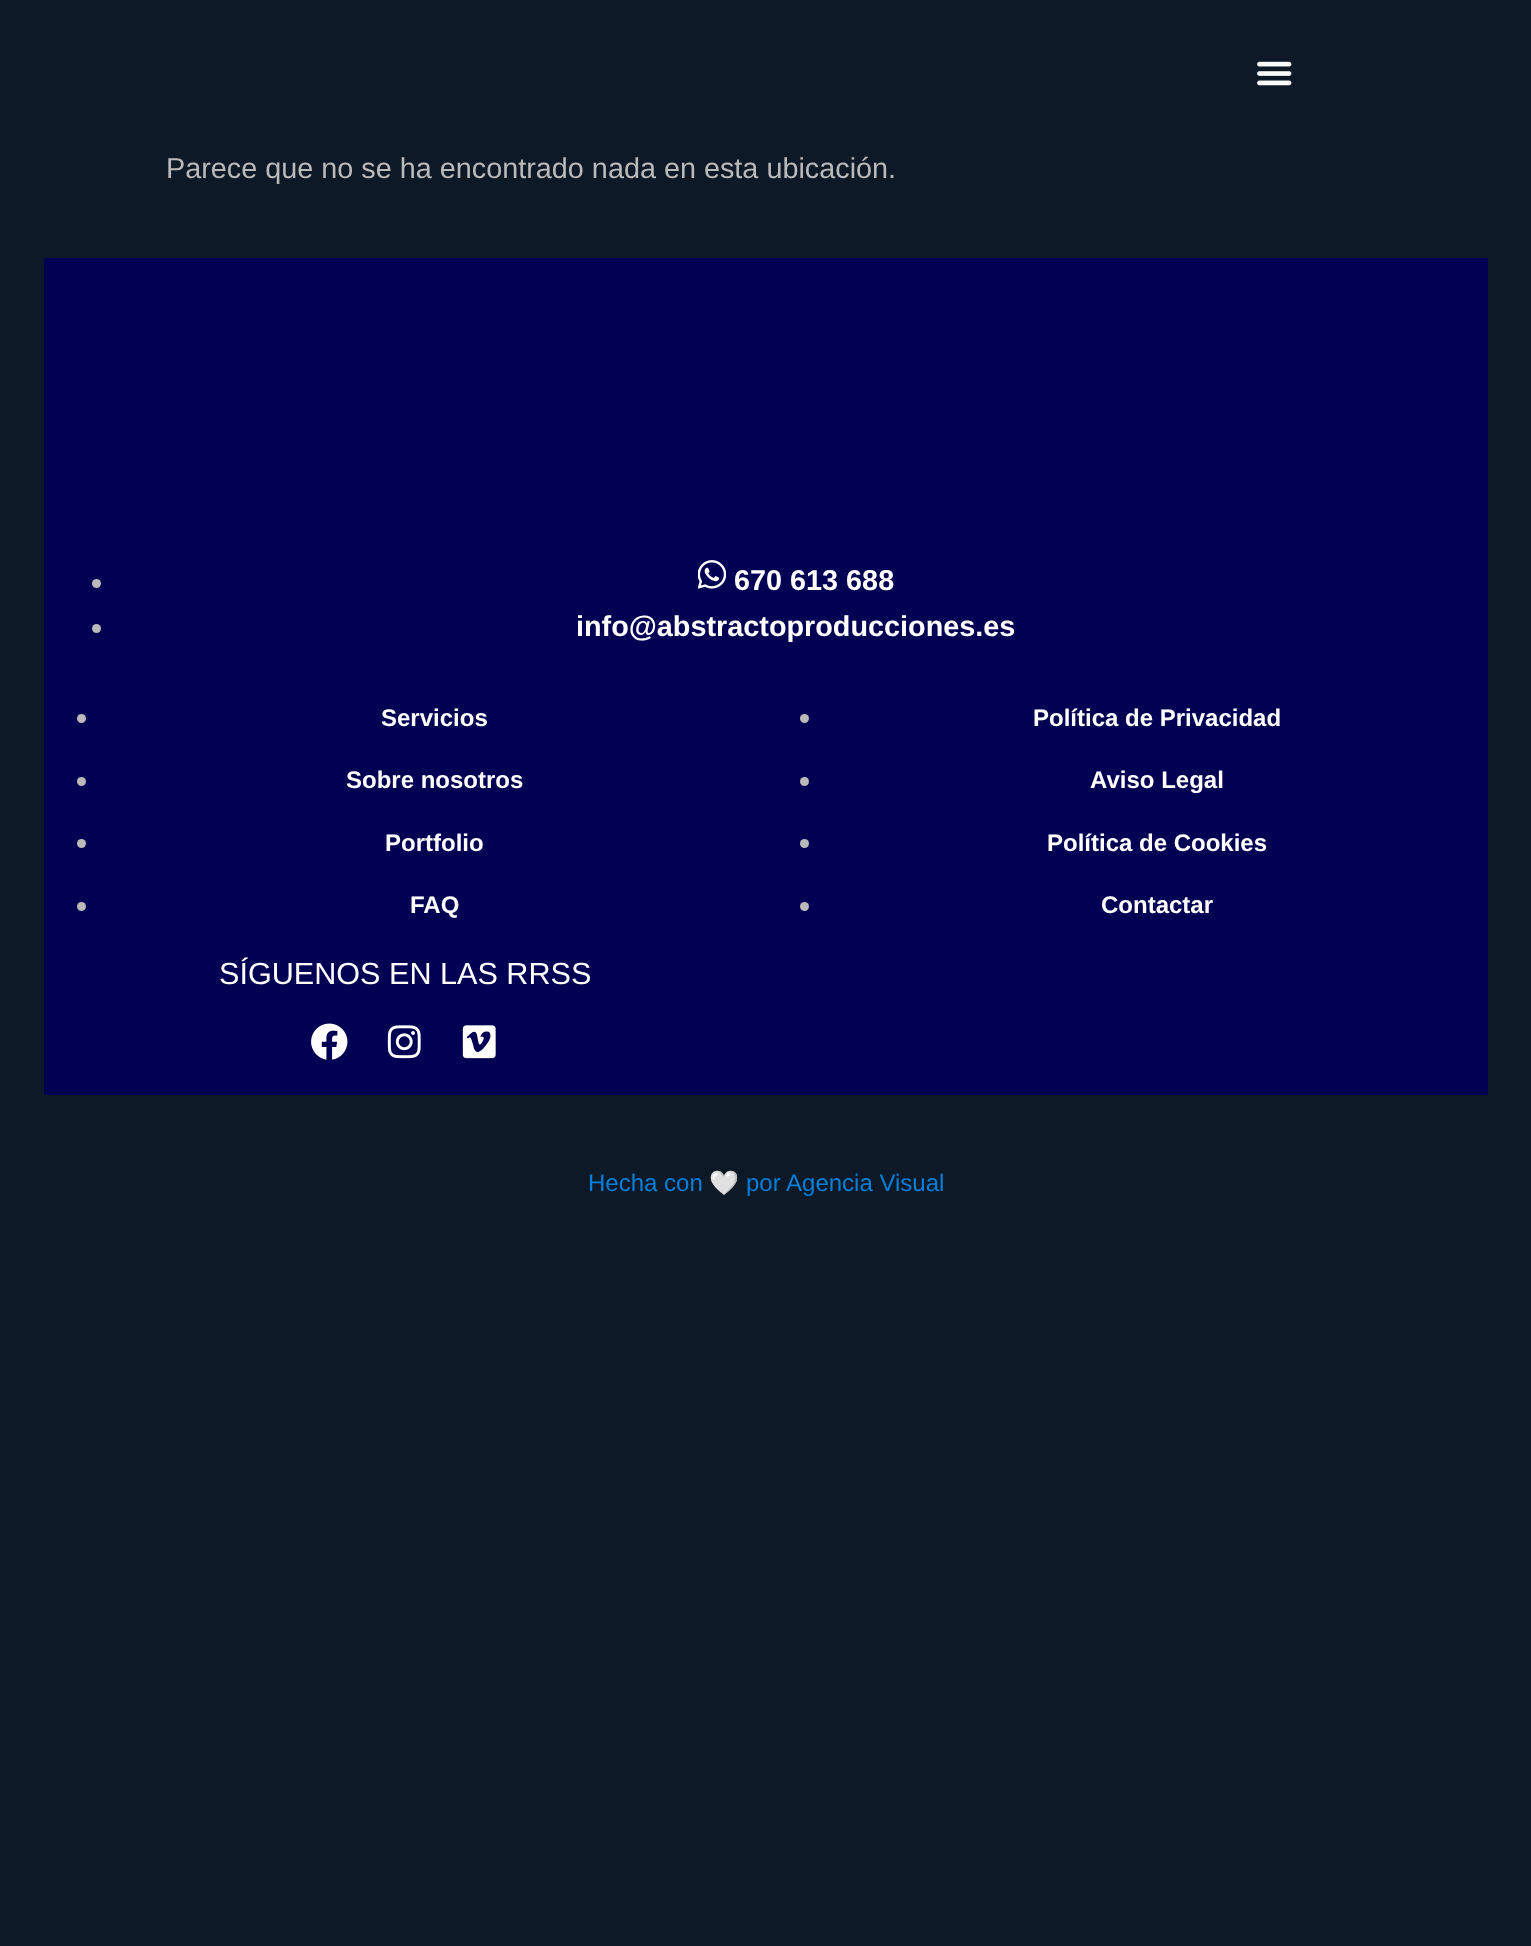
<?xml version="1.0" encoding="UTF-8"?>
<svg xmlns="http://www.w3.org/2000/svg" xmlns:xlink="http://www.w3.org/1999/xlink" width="1531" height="1946">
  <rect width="100%" height="100%" fill="#0e1927" />
  <image x="1257" y="61" width="35" height="25" xlink:href="image1.png" />
  <rect x="44" y="258" width="1444" height="837" fill="#020052" />
  <circle cx="96.5" cy="583.5" r="4.5" fill="#bababa" />
  <image x="698" y="560" width="28" height="29" xlink:href="image2.png" />
  <circle cx="96.5" cy="628.5" r="4.5" fill="#bababa" />
  <circle cx="81.5" cy="718.5" r="4.5" fill="#bababa" />
  <circle cx="81.5" cy="781.5" r="4.5" fill="#bababa" />
  <circle cx="81.5" cy="843.5" r="4.5" fill="#bababa" />
  <circle cx="81.5" cy="906.5" r="4.5" fill="#bababa" />
  <circle cx="804.5" cy="718.5" r="4.5" fill="#bababa" />
  <circle cx="804.5" cy="781.5" r="4.5" fill="#bababa" />
  <circle cx="804.5" cy="843.5" r="4.5" fill="#bababa" />
  <circle cx="804.5" cy="906.5" r="4.5" fill="#bababa" />
  <image x="311" y="1023" width="37" height="37" xlink:href="image3.png" />
  <image x="387" y="1025" width="34" height="34" xlink:href="image4.png" />
  <image x="462" y="1025" width="34" height="34" xlink:href="image5.png" />
  <text x="166" y="178" style="font-family: Liberation Sans; font-size: 28.8px; fill: #bababa">Parece que no se ha encontrado nada en esta ubicación.</text>
  <text x="734" y="590" style="font-family: Liberation Sans; font-size: 28.8px; font-weight: bold; fill: #ffffff">670 613 688</text>
  <text x="576" y="636" style="font-family: Liberation Sans; font-size: 28.8px; font-weight: bold; fill: #ffffff">info@abstractoproducciones.es</text>
  <text x="381" y="726" style="font-family: Liberation Sans; font-size: 24px; font-weight: bold; fill: #ffffff">Servicios</text>
  <text x="346" y="788" style="font-family: Liberation Sans; font-size: 24px; font-weight: bold; fill: #ffffff">Sobre nosotros</text>
  <text x="385" y="851" style="font-family: Liberation Sans; font-size: 24px; font-weight: bold; fill: #ffffff">Portfolio</text>
  <text x="410" y="913" style="font-family: Liberation Sans; font-size: 24px; font-weight: bold; fill: #ffffff">FAQ</text>
  <text x="1033" y="726" style="font-family: Liberation Sans; font-size: 24px; font-weight: bold; fill: #ffffff">Política de Privacidad</text>
  <text x="1090" y="788" style="font-family: Liberation Sans; font-size: 24px; font-weight: bold; fill: #ffffff">Aviso Legal</text>
  <text x="1047" y="851" style="font-family: Liberation Sans; font-size: 24px; font-weight: bold; fill: #ffffff">Política de Cookies</text>
  <text x="1101" y="913" style="font-family: Liberation Sans; font-size: 24px; font-weight: bold; fill: #ffffff">Contactar</text>
  <text x="219" y="984" style="font-family: Liberation Sans; font-size: 30.6px; fill: #ffffff">SÍGUENOS EN LAS RRSS</text>
  <text x="588" y="1191" style="font-family: Liberation Sans; font-size: 24px; fill: #007fdb">Hecha con</text>
  <text x="709" y="1191" style="font-family: Noto Color Emoji; font-size: 24px; fill: #007fdb">🤍</text>
  <text x="746" y="1191" style="font-family: Liberation Sans; font-size: 24px; fill: #007fdb">por Agencia Visual</text>
</svg>
